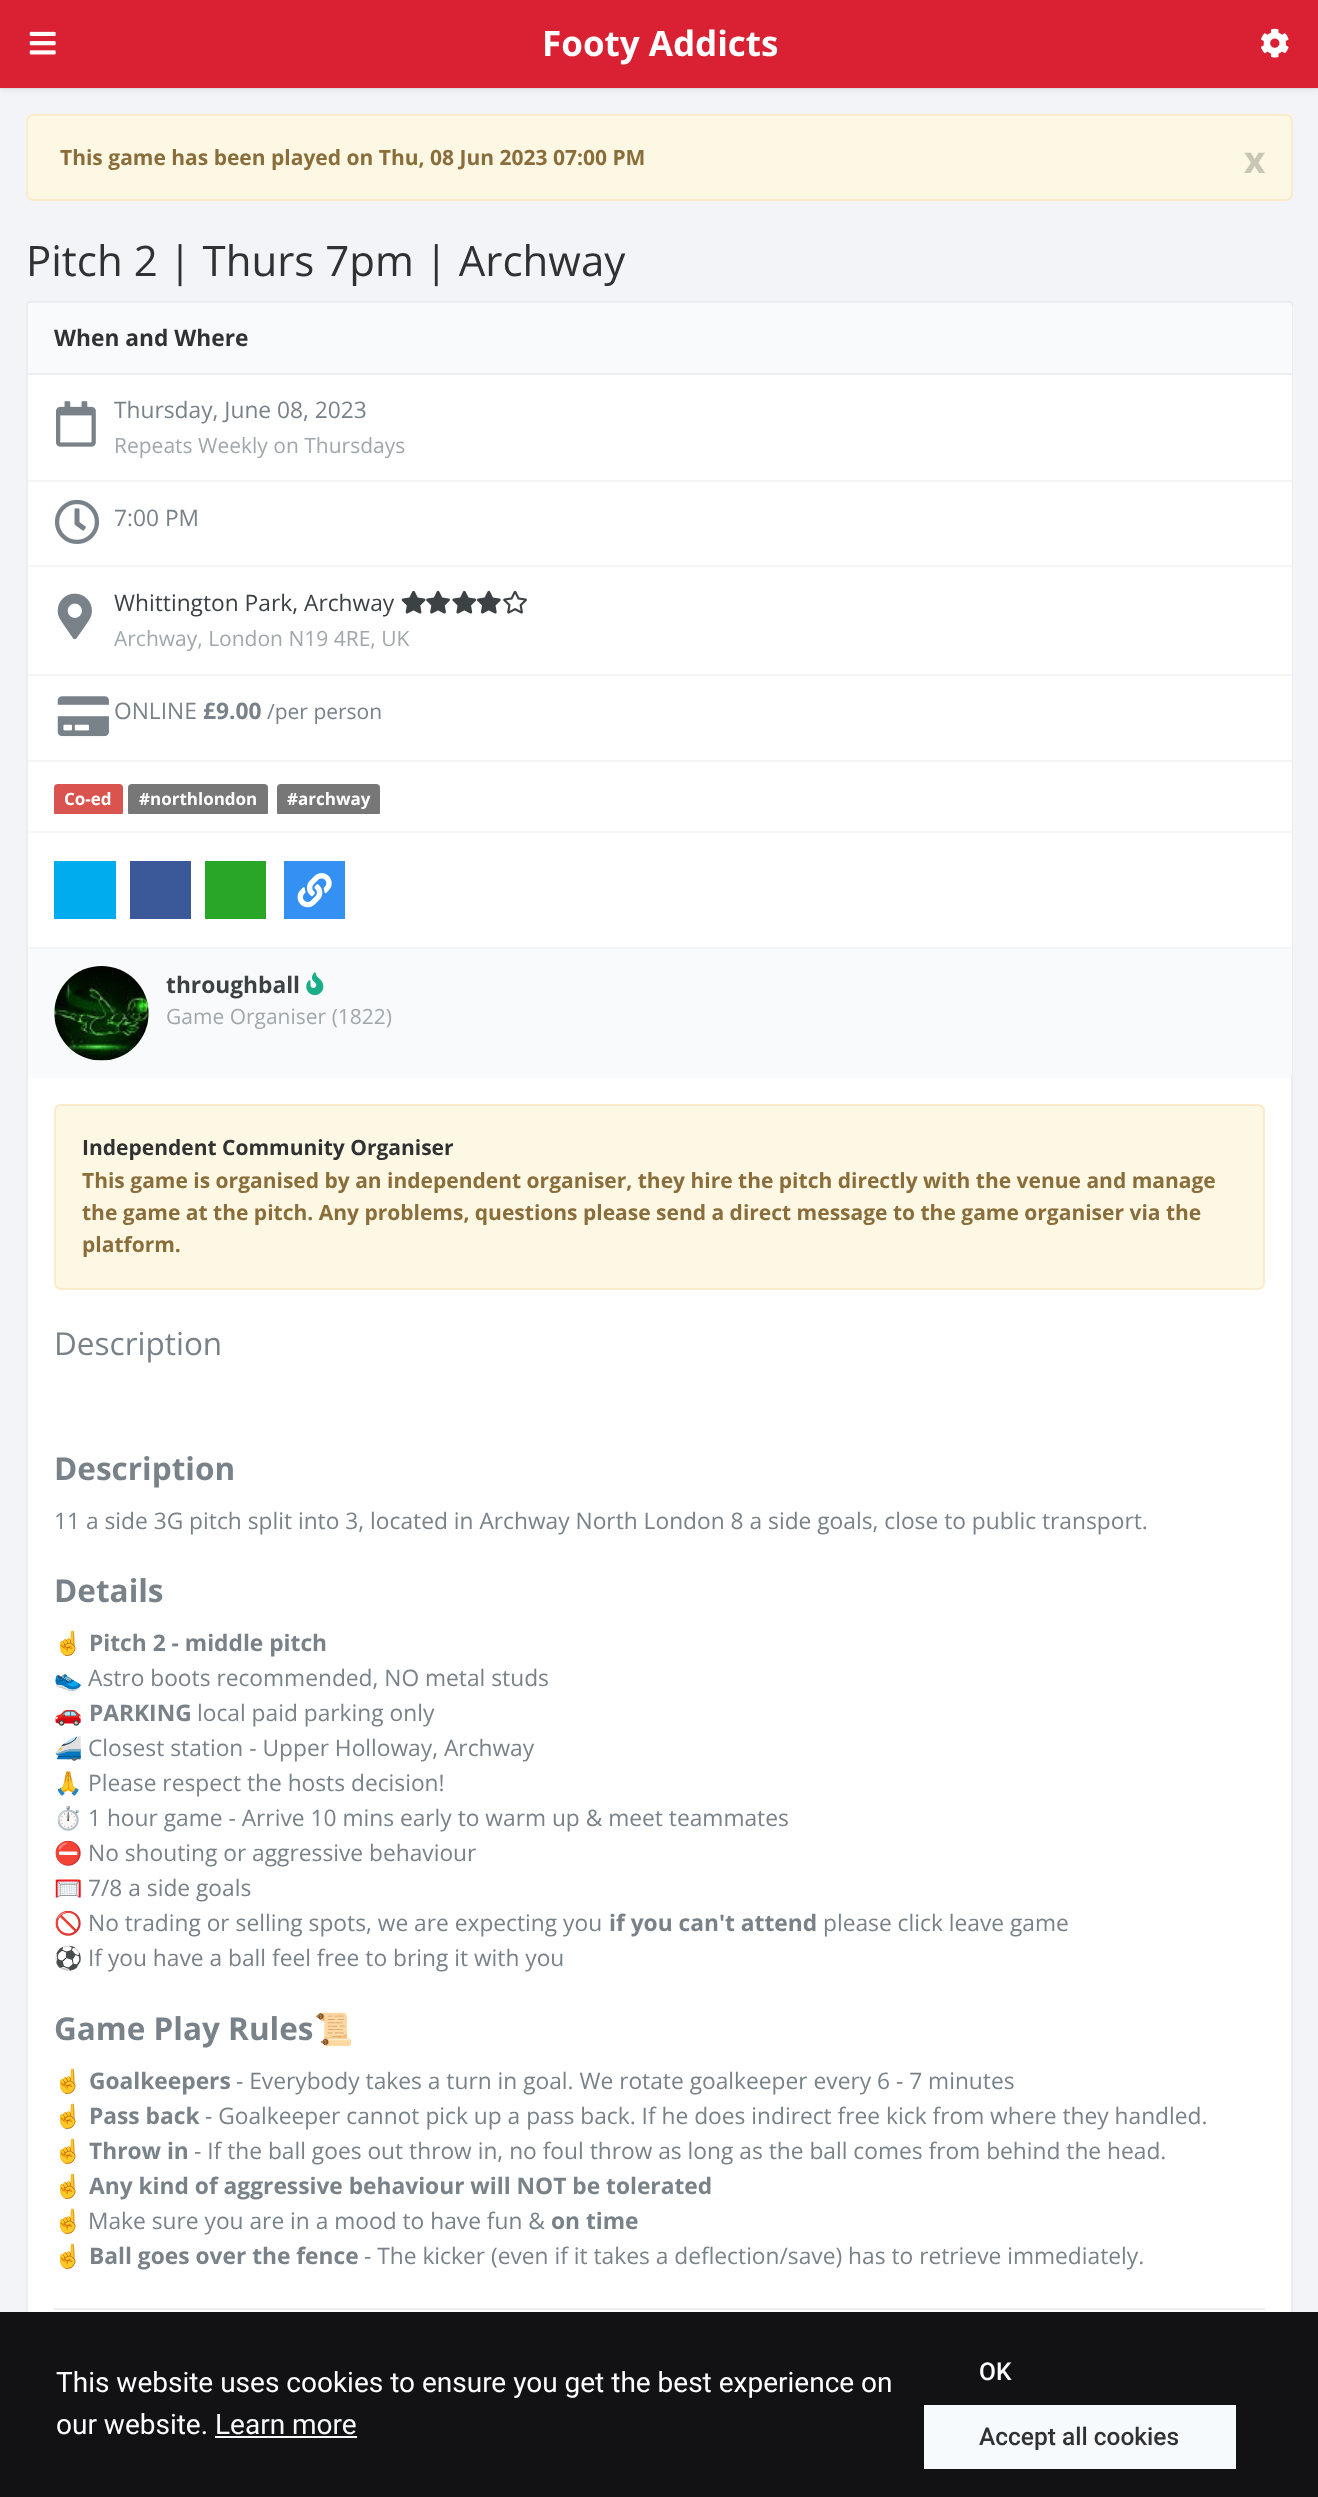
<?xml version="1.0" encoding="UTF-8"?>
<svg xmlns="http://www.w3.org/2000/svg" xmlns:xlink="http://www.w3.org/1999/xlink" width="1318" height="2497">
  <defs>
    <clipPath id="clip1"><rect x="54" y="779" width="1211" height="35" /></clipPath>
  </defs>
  <rect width="100%" height="100%" fill="#f2f4f8" />
  <path d="M 0 88 v 1 h 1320 v -87 v 86 z" fill="#e6e8ec" />
  <rect y="4" width="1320" height="87" fill="#000000" fill-opacity="0.05" filter="blur(2px)" />
  <rect width="1318" height="88" fill="#da2134" />
  <image x="29" y="31" width="27" height="24" xlink:href="image1.png" />
  <image x="1261" y="28" width="28" height="30" xlink:href="image2.png" />
  <rect x="26" y="114" width="1267" height="87" rx="7" fill="#fcf8e3" />
  <path d="M 33 117 h 1253 c 3 0 6 3 6 5 c 0 -3 -2 -6 -5 -6 h -1254 c -3 0 -5 3 -5 6 c 0 -2 2 -5 5 -5 z" fill="#fdf9e9" />
  <rect x="27" y="115" width="1265" height="85" rx="6" fill="none" stroke="#faebcc" stroke-width="2" />
  <rect x="27" y="302" width="1265" height="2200" rx="3" fill="#ffffff" stroke="#eaeef1" stroke-width="2" />
  <path d="M 32 303 h 1256 c 2 0 4 2 4 4 v 68 h -1264 v -68 c 0 -2 2 -4 4 -4 z" fill="#f9fafc" />
  <rect x="28" y="373" width="1264" height="2" fill="#eaeef1" />
  <rect x="1291" y="375" width="1" height="105" fill="#ffffff" />
  <image x="56" y="401" width="40" height="46" xlink:href="image3.png" />
  <rect x="1291" y="482" width="1" height="83" fill="#ffffff" />
  <rect x="28" y="480" width="1264" height="2" fill="#f3f5f7" />
  <rect x="28" y="565" width="1264" height="2" fill="#f3f5f7" />
  <image x="55" y="499" width="44" height="45" xlink:href="image4.png" />
  <rect x="1291" y="567" width="1" height="107" fill="#ffffff" />
  <rect x="28" y="674" width="1264" height="2" fill="#f3f5f7" />
  <image x="57" y="593" width="35" height="47" xlink:href="image5.png" />
  <image x="401" y="590" width="25" height="24" xlink:href="image6.png" />
  <image x="426" y="590" width="24" height="24" xlink:href="image7.png" />
  <image x="452" y="590" width="25" height="24" xlink:href="image8.png" />
  <image x="476" y="590" width="25" height="24" xlink:href="image9.png" />
  <image x="503" y="590" width="24" height="24" xlink:href="image10.png" />
  <rect x="1291" y="676" width="1" height="84" fill="#ffffff" />
  <image x="57" y="696" width="52" height="41" xlink:href="image11.png" />
  <rect x="1291" y="762" width="1" height="69" fill="#ffffff" />
  <rect x="28" y="760" width="1264" height="2" fill="#f3f5f7" />
  <rect x="28" y="831" width="1264" height="2" fill="#f3f5f7" />
  <g clip-path="url(#clip1)">
    <rect x="54" y="784" width="69" height="32" rx="4" fill="#d9534f" />
    <rect x="128" y="784" width="140" height="32" rx="4" fill="#777777" />
    <rect x="277" y="784" width="103" height="32" rx="4" fill="#777777" />
  </g>
  <rect x="1291" y="833" width="1" height="114" fill="#ffffff" />
  <rect x="28" y="947" width="1264" height="2" fill="#f3f5f7" />
  <rect x="54" y="861" width="62" height="58" fill="#00aced" />
  <rect x="130" y="861" width="61" height="58" fill="#3b5998" />
  <rect x="205" y="861" width="61" height="58" fill="#29a628" />
  <rect x="284" y="861" width="61" height="58" fill="#3490f3" />
  <image x="297" y="873" width="35" height="35" xlink:href="image12.png" />
  <path d="M 28 949 h 1264 v 125 c 0 2 -2 4 -4 4 h -1256 c -2 0 -4 -2 -4 -4 z" fill="#f9fafc" />
  <image x="54" y="966" width="95" height="95" xlink:href="image13.png" />
  <image x="306" y="972" width="18" height="24" xlink:href="image14.png" />
  <rect x="54" y="1104" width="1211" height="186" rx="7" fill="#fcf8e3" />
  <path d="M 61 1108 h 1197 c 3 0 6 2 6 5 v -2 c 0 -3 -2 -5 -5 -5 h -1198 c -3 0 -5 2 -5 5 v 2 c 0 -3 2 -5 5 -5 z" fill="#fdf9e9" />
  <rect x="55" y="1105" width="1209" height="184" rx="6" fill="none" stroke="#faebcc" stroke-width="2" />
  <rect x="54" y="2308" width="1211" height="2" fill="#eeeeee" />
  <rect y="2312" width="1318" height="185" fill="#121214" />
  <rect x="215" y="2436" width="142" height="2" fill="#f7fafc" />
  <rect x="924" y="2405" width="312" height="64" fill="#f7fafc" />
  <text x="542" y="56" style="font-family: Open Sans; font-size: 35px; font-weight: bold; fill: #ffffff">Footy Addicts</text>
  <text x="60" y="165" style="font-family: Open Sans; font-size: 21px; font-weight: bold; fill: #8a6d3b">This game has been played on Thu, 08 Jun 2023 07:00 PM</text>
  <text x="1244" y="173" style="font-family: Open Sans; font-size: 37px; font-weight: bold; fill: #cac6b6">x</text>
  <text x="26" y="276" style="font-family: Open Sans; font-size: 42px; fill: #303132">Pitch 2 | Thurs 7pm | Archway</text>
  <text x="54" y="346" style="font-family: Open Sans; font-size: 22.75px; font-weight: bold; fill: #303132">When and Where</text>
  <text x="114" y="418" style="font-family: Open Sans; font-size: 22.75px; fill: #788288">Thursday, June 08, 2023</text>
  <text x="114" y="453" style="font-family: Open Sans; font-size: 21px; fill: #a1a8ac">Repeats Weekly on Thursdays</text>
  <text x="114" y="526" style="font-family: Open Sans; font-size: 22.75px; fill: #788288">7:00 PM</text>
  <text x="114" y="611" style="font-family: Open Sans; font-size: 22.75px; fill: #3c4144">Whittington Park, Archway</text>
  <text x="114" y="646" style="font-family: Open Sans; font-size: 21px; fill: #a1a8ac">Archway, London N19 4RE, UK</text>
  <text x="114" y="719" style="font-family: Open Sans; font-size: 22.75px; fill: #788288">ONLINE</text>
  <text x="203" y="719" style="font-family: Open Sans; font-size: 22.75px; font-weight: bold; fill: #788288">£9.00</text>
  <text x="267" y="719" style="font-family: Open Sans; font-size: 21px; fill: #788288">/per person</text>
  <text x="64" y="805" style="font-family: Open Sans; font-size: 17px; font-weight: bold; fill: #ffffff">Co-ed</text>
  <text x="139" y="805" style="font-family: Open Sans; font-size: 17px; font-weight: bold; fill: #ffffff">#northlondon</text>
  <text x="287" y="805" style="font-family: Open Sans; font-size: 17px; font-weight: bold; fill: #ffffff">#archway</text>
  <text x="166" y="993" style="font-family: Open Sans; font-size: 22.75px; font-weight: bold; fill: #3c4144">throughball</text>
  <text x="166" y="1024" style="font-family: Open Sans; font-size: 21px; fill: #a1a8ac">Game Organiser (1822)</text>
  <text x="82" y="1155" style="font-family: Open Sans; font-size: 21px; font-weight: bold; fill: #303132">Independent Community Organiser</text>
  <text x="82" y="1188" style="font-family: Open Sans; font-size: 21px; font-weight: bold; fill: #8a6d3b">This game is organised by an independent organiser, they hire the pitch directly with the venue and manage</text>
  <text x="82" y="1220" style="font-family: Open Sans; font-size: 21px; font-weight: bold; fill: #8a6d3b">the game at the pitch. Any problems, questions please send a direct message to the game organiser via the</text>
  <text x="82" y="1252" style="font-family: Open Sans; font-size: 21px; font-weight: bold; fill: #8a6d3b">platform.</text>
  <text x="54" y="1355" style="font-family: Open Sans; font-size: 31.5px; fill: #788288">Description</text>
  <text x="54" y="1480" style="font-family: Open Sans; font-size: 31.5px; font-weight: bold; fill: #788288">Description</text>
  <text x="54" y="1529" style="font-family: Open Sans; font-size: 22.75px; fill: #788288">11 a side 3G pitch split into 3, located in Archway North London 8 a side goals, close to public transport.</text>
  <text x="54" y="1602" style="font-family: Open Sans; font-size: 31.5px; font-weight: bold; fill: #788288">Details</text>
  <text x="54" y="1651" style="font-family: Noto Color Emoji; font-size: 22.75px; fill: #788288">☝️</text>
  <text x="89" y="1651" style="font-family: Open Sans; font-size: 22.75px; font-weight: bold; fill: #788288">Pitch 2 - middle pitch</text>
  <text x="54" y="1686" style="font-family: Noto Color Emoji; font-size: 22.75px; fill: #788288">👟</text>
  <text x="88" y="1686" style="font-family: Open Sans; font-size: 22.75px; fill: #788288">Astro boots recommended, NO metal studs</text>
  <text x="54" y="1721" style="font-family: Noto Color Emoji; font-size: 22.75px; fill: #788288">🚗</text>
  <text x="89" y="1721" style="font-family: Open Sans; font-size: 22.75px; font-weight: bold; fill: #788288">PARKING</text>
  <text x="197" y="1721" style="font-family: Open Sans; font-size: 22.75px; fill: #788288">local paid parking only</text>
  <text x="54" y="1756" style="font-family: Noto Color Emoji; font-size: 22.75px; fill: #788288">🚄</text>
  <text x="88" y="1756" style="font-family: Open Sans; font-size: 22.75px; fill: #788288">Closest station - Upper Holloway, Archway</text>
  <text x="54" y="1791" style="font-family: Noto Color Emoji; font-size: 22.75px; fill: #788288">🙏</text>
  <text x="88" y="1791" style="font-family: Open Sans; font-size: 22.75px; fill: #788288">Please respect the hosts decision!</text>
  <text x="54" y="1826" style="font-family: Noto Color Emoji; font-size: 22.75px; fill: #788288">⏱️</text>
  <text x="88" y="1826" style="font-family: Open Sans; font-size: 22.75px; fill: #788288">1 hour game - Arrive 10 mins early to warm up &amp; meet teammates</text>
  <text x="54" y="1861" style="font-family: Noto Color Emoji; font-size: 22.75px; fill: #788288">⛔</text>
  <text x="88" y="1861" style="font-family: Open Sans; font-size: 22.75px; fill: #788288">No shouting or aggressive behaviour</text>
  <text x="54" y="1896" style="font-family: Noto Color Emoji; font-size: 22.75px; fill: #788288">🥅</text>
  <text x="88" y="1896" style="font-family: Open Sans; font-size: 22.75px; fill: #788288">7/8 a side goals</text>
  <text x="54" y="1931" style="font-family: Noto Color Emoji; font-size: 22.75px; fill: #788288">🚫</text>
  <text x="88" y="1931" style="font-family: Open Sans; font-size: 22.75px; fill: #788288">No trading or selling spots, we are expecting you</text>
  <text x="609" y="1931" style="font-family: Open Sans; font-size: 22.75px; font-weight: bold; fill: #788288">if you can't attend</text>
  <text x="823" y="1931" style="font-family: Open Sans; font-size: 22.75px; fill: #788288">please click leave game</text>
  <text x="54" y="1966" style="font-family: Noto Color Emoji; font-size: 22.75px; fill: #788288">⚽</text>
  <text x="88" y="1966" style="font-family: Open Sans; font-size: 22.75px; fill: #788288">If you have a ball feel free to bring it with you</text>
  <text x="54" y="2040" style="font-family: Open Sans; font-size: 31.5px; font-weight: bold; fill: #788288">Game Play Rules</text>
  <text x="314" y="2040" style="font-family: Noto Color Emoji; font-size: 31.5px; fill: #788288">📜</text>
  <text x="54" y="2089" style="font-family: Noto Color Emoji; font-size: 22.75px; fill: #788288">☝️</text>
  <text x="89" y="2089" style="font-family: Open Sans; font-size: 22.75px; font-weight: bold; fill: #788288">Goalkeepers</text>
  <text x="236" y="2089" style="font-family: Open Sans; font-size: 22.75px; fill: #788288">- Everybody takes a turn in goal. We rotate goalkeeper every 6 - 7 minutes</text>
  <text x="54" y="2124" style="font-family: Noto Color Emoji; font-size: 22.75px; fill: #788288">☝️</text>
  <text x="89" y="2124" style="font-family: Open Sans; font-size: 22.75px; font-weight: bold; fill: #788288">Pass back</text>
  <text x="205" y="2124" style="font-family: Open Sans; font-size: 22.75px; fill: #788288">- Goalkeeper cannot pick up a pass back. If he does indirect free kick from where they handled.</text>
  <text x="54" y="2159" style="font-family: Noto Color Emoji; font-size: 22.75px; fill: #788288">☝️</text>
  <text x="89" y="2159" style="font-family: Open Sans; font-size: 22.75px; font-weight: bold; fill: #788288">Throw in</text>
  <text x="194" y="2159" style="font-family: Open Sans; font-size: 22.75px; fill: #788288">- If the ball goes out throw in, no foul throw as long as the ball comes from behind the head.</text>
  <text x="54" y="2194" style="font-family: Noto Color Emoji; font-size: 22.75px; fill: #788288">☝️</text>
  <text x="89" y="2194" style="font-family: Open Sans; font-size: 22.75px; font-weight: bold; fill: #788288">Any kind of aggressive behaviour will NOT be tolerated</text>
  <text x="54" y="2229" style="font-family: Noto Color Emoji; font-size: 22.75px; fill: #788288">☝️</text>
  <text x="88" y="2229" style="font-family: Open Sans; font-size: 22.75px; fill: #788288">Make sure you are in a mood to have fun &amp;</text>
  <text x="551" y="2229" style="font-family: Open Sans; font-size: 22.75px; font-weight: bold; fill: #788288">on time</text>
  <text x="54" y="2264" style="font-family: Noto Color Emoji; font-size: 22.75px; fill: #788288">☝️</text>
  <text x="89" y="2264" style="font-family: Open Sans; font-size: 22.75px; font-weight: bold; fill: #788288">Ball goes over the fence</text>
  <text x="364" y="2264" style="font-family: Open Sans; font-size: 22.75px; fill: #788288">- The kicker (even if it takes a deflection/save) has to retrieve immediately.</text>
  <text x="56" y="2392" style="font-family: Roboto; font-size: 28px; fill: #ffffff">This website uses cookies to ensure you get the best experience on</text>
  <text x="56" y="2434" style="font-family: Roboto; font-size: 28px; fill: #ffffff">our website.</text>
  <text x="215" y="2434" style="font-family: Roboto; font-size: 28px; fill: #f7fafc">Learn more</text>
  <text x="979" y="2380" style="font-family: Roboto; font-size: 24.5px; font-weight: 500; fill: #ffffff">OK</text>
  <text x="979" y="2445" style="font-family: Roboto; font-size: 24.5px; font-weight: 500; fill: #303132">Accept all cookies</text>
</svg>
